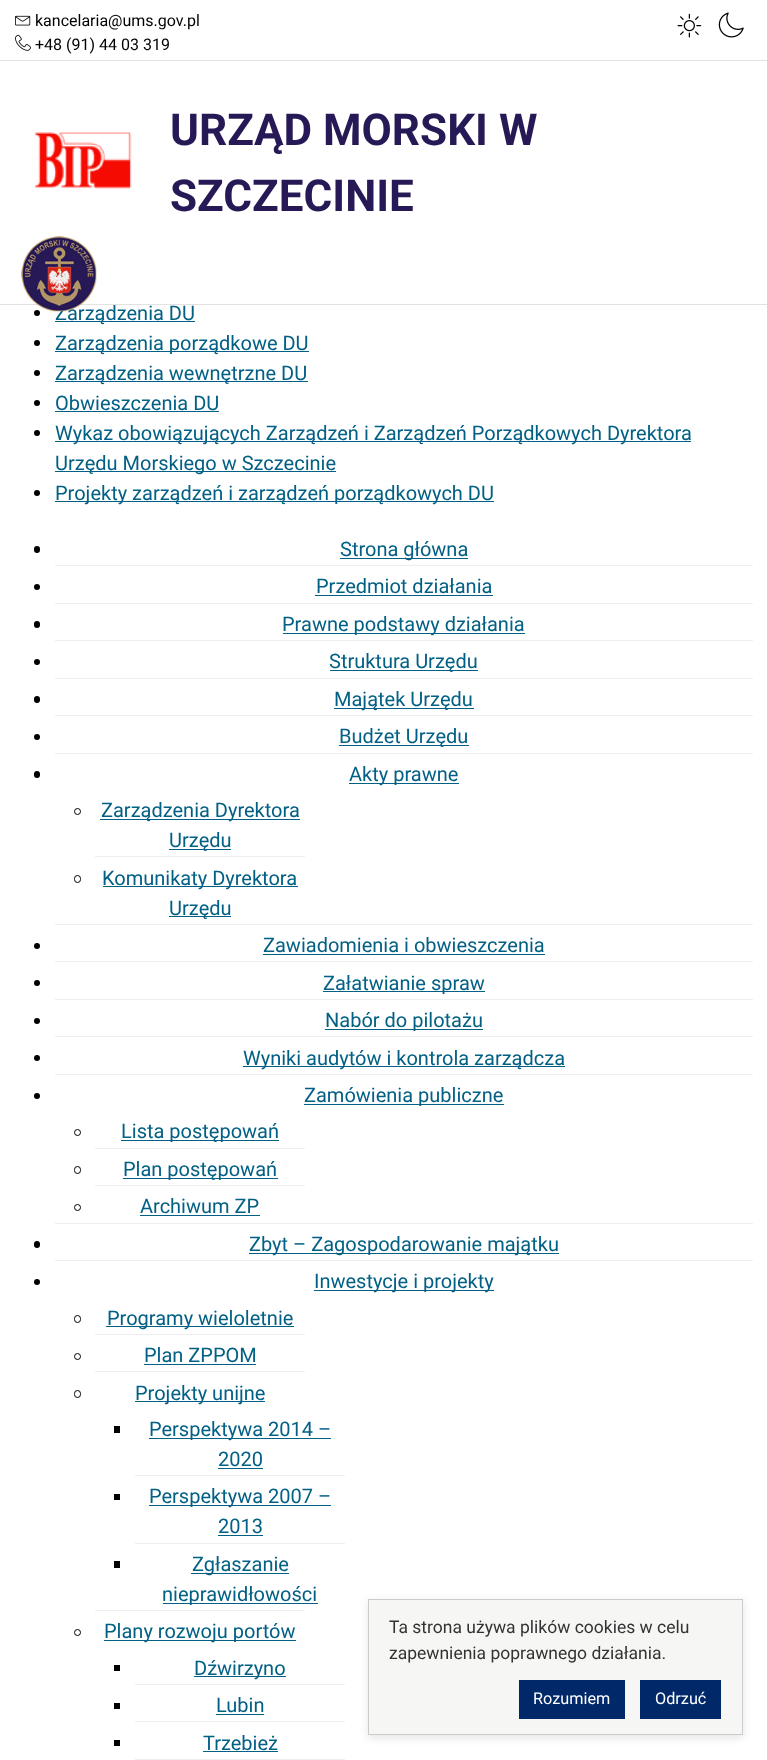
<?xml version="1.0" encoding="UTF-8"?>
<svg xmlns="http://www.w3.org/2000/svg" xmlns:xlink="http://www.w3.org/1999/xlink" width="767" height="1760">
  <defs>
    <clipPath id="clip1"><path d="M 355 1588 h 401 v 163 h -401 z m 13 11 h 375 v 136 h -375 z" clip-rule="evenodd" /></clipPath>
  </defs>
  <rect width="100%" height="100%" fill="#ffffff" />
  <rect y="304" width="767" height="1" fill="#e2e2e2" />
  <rect y="60" width="767" height="1" fill="#e2e2e2" />
  <image x="15" y="15" width="16" height="11" xlink:href="image1.png" />
  <image x="15" y="34" width="16" height="17" xlink:href="image2.png" />
  <image x="677" y="13" width="25" height="25" xlink:href="image3.png" />
  <image x="718" y="12" width="26" height="26" xlink:href="image4.png" />
  <image x="34" y="132" width="98" height="57" xlink:href="image5.png" />
  <circle cx="37" cy="313" r="3" fill="#000000" />
  <rect x="55" y="321" width="140" height="1" fill="#036085" />
  <circle cx="37" cy="343" r="3" fill="#000000" />
  <rect x="55" y="351" width="254" height="1" fill="#036085" />
  <circle cx="37" cy="373" r="3" fill="#000000" />
  <rect x="55" y="381" width="253" height="1" fill="#036085" />
  <circle cx="37" cy="403" r="3" fill="#000000" />
  <rect x="55" y="411" width="164" height="1" fill="#036085" />
  <circle cx="37" cy="433" r="3" fill="#000000" />
  <rect x="55" y="441" width="636" height="1" fill="#036085" />
  <rect x="55" y="471" width="281" height="1" fill="#036085" />
  <circle cx="37" cy="493" r="3" fill="#000000" />
  <rect x="55" y="501" width="439" height="1" fill="#036085" />
  <rect x="55" y="565" width="698" height="1" fill="#eeeeee" />
  <rect x="34" y="546" width="6" height="7" rx="3" fill="#000000" />
  <rect x="340" y="558" width="128" height="1" fill="#036085" />
  <rect x="55" y="603" width="698" height="1" fill="#eeeeee" />
  <circle cx="37" cy="587" r="3" fill="#000000" />
  <rect x="315" y="595" width="178" height="1" fill="#036085" />
  <rect x="55" y="640" width="698" height="1" fill="#eeeeee" />
  <rect x="34" y="621" width="6" height="7" rx="3" fill="#000000" />
  <rect x="283" y="633" width="242" height="1" fill="#036085" />
  <rect x="55" y="678" width="698" height="1" fill="#eeeeee" />
  <circle cx="37" cy="662" r="3" fill="#000000" />
  <rect x="330" y="670" width="148" height="1" fill="#036085" />
  <rect x="55" y="715" width="698" height="1" fill="#eeeeee" />
  <rect x="34" y="696" width="6" height="7" rx="3" fill="#000000" />
  <rect x="334" y="708" width="140" height="1" fill="#036085" />
  <rect x="55" y="753" width="698" height="1" fill="#eeeeee" />
  <circle cx="37" cy="737" r="3" fill="#000000" />
  <rect x="339" y="745" width="130" height="1" fill="#036085" />
  <rect x="55" y="924" width="698" height="1" fill="#eeeeee" />
  <rect x="34" y="771" width="6" height="7" rx="3" fill="#000000" />
  <rect x="349" y="783" width="110" height="1" fill="#036085" />
  <rect x="95" y="856" width="210" height="1" fill="#eeeeee" />
  <circle cx="77.5" cy="811.5" r="3" fill="none" stroke="#000000" />
  <rect x="100" y="819" width="200" height="1" fill="#036085" />
  <rect x="169" y="849" width="62" height="1" fill="#036085" />
  <rect x="74.5" y="875.5" width="6" height="7" rx="3" fill="none" stroke="#000000" />
  <rect x="103" y="886" width="195" height="1" fill="#036085" />
  <rect x="169" y="916" width="62" height="1" fill="#036085" />
  <rect x="55" y="961" width="698" height="1" fill="#eeeeee" />
  <circle cx="37" cy="946" r="3" fill="#000000" />
  <rect x="263" y="954" width="282" height="1" fill="#036085" />
  <rect x="55" y="999" width="698" height="1" fill="#eeeeee" />
  <circle cx="37" cy="983" r="3" fill="#000000" />
  <rect x="323" y="991" width="162" height="1" fill="#036085" />
  <rect x="55" y="1036" width="698" height="1" fill="#eeeeee" />
  <circle cx="37" cy="1021" r="3" fill="#000000" />
  <rect x="325" y="1029" width="158" height="1" fill="#036085" />
  <rect x="55" y="1074" width="698" height="1" fill="#eeeeee" />
  <circle cx="37" cy="1058" r="3" fill="#000000" />
  <rect x="243" y="1066" width="322" height="1" fill="#036085" />
  <rect x="55" y="1223" width="698" height="1" fill="#eeeeee" />
  <circle cx="37" cy="1096" r="3" fill="#000000" />
  <rect x="304" y="1104" width="200" height="1" fill="#036085" />
  <rect x="95" y="1148" width="210" height="1" fill="#eeeeee" />
  <circle cx="77.5" cy="1132.5" r="3" fill="none" stroke="#000000" />
  <rect x="121" y="1140" width="158" height="1" fill="#036085" />
  <rect x="95" y="1185" width="210" height="1" fill="#eeeeee" />
  <rect x="74.5" y="1166.5" width="6" height="7" rx="3" fill="none" stroke="#000000" />
  <rect x="123" y="1178" width="155" height="1" fill="#036085" />
  <circle cx="77.5" cy="1207.5" r="3" fill="none" stroke="#000000" />
  <rect x="140" y="1215" width="120" height="1" fill="#036085" />
  <rect x="55" y="1260" width="698" height="1" fill="#eeeeee" />
  <rect x="34" y="1241" width="6" height="7" rx="3" fill="#000000" />
  <rect x="249" y="1253" width="310" height="1" fill="#036085" />
  <circle cx="37" cy="1282" r="3" fill="#000000" />
  <rect x="314" y="1290" width="180" height="1" fill="#036085" />
  <rect x="95" y="1334" width="210" height="1" fill="#eeeeee" />
  <rect x="74.5" y="1315.5" width="6" height="7" rx="3" fill="none" stroke="#000000" />
  <rect x="106" y="1326" width="188" height="1" fill="#036085" />
  <rect x="95" y="1371" width="210" height="1" fill="#eeeeee" />
  <circle cx="77.5" cy="1356.5" r="3" fill="none" stroke="#000000" />
  <rect x="144" y="1364" width="112" height="1" fill="#036085" />
  <rect x="95" y="1610" width="210" height="1" fill="#eeeeee" />
  <rect x="74.5" y="1390.5" width="6" height="7" rx="3" fill="none" stroke="#000000" />
  <rect x="135" y="1401" width="130" height="1" fill="#036085" />
  <rect x="135" y="1475" width="210" height="1" fill="#eeeeee" />
  <rect x="114" y="1426" width="6" height="7" fill="#000000" />
  <rect x="149" y="1438" width="182" height="1" fill="#036085" />
  <rect x="218" y="1468" width="45" height="1" fill="#036085" />
  <rect x="135" y="1543" width="210" height="1" fill="#eeeeee" />
  <rect x="114" y="1494" width="6" height="6" fill="#000000" />
  <rect x="149" y="1505" width="182" height="1" fill="#036085" />
  <rect x="218" y="1535" width="45" height="1" fill="#036085" />
  <rect x="114" y="1561" width="6" height="7" fill="#000000" />
  <rect x="191" y="1573" width="98" height="1" fill="#036085" />
  <rect x="163" y="1603" width="155" height="1" fill="#036085" />
  <circle cx="77.5" cy="1632.5" r="3" fill="none" stroke="#000000" />
  <rect x="104" y="1640" width="192" height="1" fill="#036085" />
  <rect x="135" y="1684" width="210" height="1" fill="#eeeeee" />
  <rect x="114" y="1665" width="6" height="6" fill="#000000" />
  <rect x="194" y="1676" width="92" height="1" fill="#036085" />
  <rect x="135" y="1721" width="210" height="1" fill="#eeeeee" />
  <rect x="114" y="1703" width="6" height="6" fill="#000000" />
  <rect x="216" y="1714" width="48" height="1" fill="#036085" />
  <rect x="135" y="1759" width="210" height="1" fill="#eeeeee" />
  <rect x="114" y="1740" width="6" height="6" fill="#000000" />
  <rect x="203" y="1751" width="75" height="1" fill="#036085" />
  <g clip-path="url(#clip1)">
    <rect x="368" y="1601" width="375" height="137" fill="#000000" fill-opacity="0.1" filter="blur(4px)" />
  </g>
  <rect x="368.5" y="1599.5" width="374" height="135" fill="#f5f5f4" fill-opacity="0.91" stroke="#cccccc" />
  <rect x="519" y="1680" width="106" height="39" fill="#01296a" />
  <rect x="640" y="1680" width="81" height="39" fill="#01296a" />
  <text x="35" y="26" style="font-family: Roboto; font-size: 16px; fill: #000000">kancelaria@ums.gov.pl</text>
  <text x="35" y="50" style="font-family: Roboto; font-size: 16px; fill: #000000">+48 (91) 44 03 319</text>
  <text x="170" y="145" style="font-family: Roboto; font-size: 44px; font-weight: bold; fill: #271955">URZĄD MORSKI W</text>
  <text x="170" y="211" style="font-family: Roboto; font-size: 44px; font-weight: bold; fill: #271955">SZCZECINIE</text>
  <text x="55" y="320" style="font-family: Roboto; font-size: 20px; fill: #036085">Zarządzenia DU</text>
  <image x="21" y="236" width="76" height="76" xlink:href="image6.png" />
  <text x="55" y="350" style="font-family: Roboto; font-size: 20px; fill: #036085">Zarządzenia porządkowe DU</text>
  <text x="55" y="380" style="font-family: Roboto; font-size: 20px; fill: #036085">Zarządzenia wewnętrzne DU</text>
  <text x="55" y="410" style="font-family: Roboto; font-size: 20px; fill: #036085">Obwieszczenia DU</text>
  <text x="55" y="440" style="font-family: Roboto; font-size: 20px; fill: #036085">Wykaz obowiązujących Zarządzeń i Zarządzeń Porządkowych Dyrektora</text>
  <text x="55" y="470" style="font-family: Roboto; font-size: 20px; fill: #036085">Urzędu Morskiego w Szczecinie</text>
  <text x="55" y="500" style="font-family: Roboto; font-size: 20px; fill: #036085">Projekty zarządzeń i zarządzeń porządkowych DU</text>
  <text x="340" y="556" style="font-family: Roboto; font-size: 20px; fill: #036085">Strona główna</text>
  <text x="316" y="593" style="font-family: Roboto; font-size: 20px; fill: #036085">Przedmiot działania</text>
  <text x="282" y="631" style="font-family: Roboto; font-size: 20px; fill: #036085">Prawne podstawy działania</text>
  <text x="329" y="668" style="font-family: Roboto; font-size: 20px; fill: #036085">Struktura Urzędu</text>
  <text x="334" y="706" style="font-family: Roboto; font-size: 20px; fill: #036085">Majątek Urzędu</text>
  <text x="339" y="743" style="font-family: Roboto; font-size: 20px; fill: #036085">Budżet Urzędu</text>
  <text x="349" y="781" style="font-family: Roboto; font-size: 20px; fill: #036085">Akty prawne</text>
  <text x="101" y="817" style="font-family: Roboto; font-size: 20px; fill: #036085">Zarządzenia Dyrektora</text>
  <text x="169" y="847" style="font-family: Roboto; font-size: 20px; fill: #036085">Urzędu</text>
  <text x="102" y="885" style="font-family: Roboto; font-size: 20px; fill: #036085">Komunikaty Dyrektora</text>
  <text x="169" y="915" style="font-family: Roboto; font-size: 20px; fill: #036085">Urzędu</text>
  <text x="263" y="952" style="font-family: Roboto; font-size: 20px; fill: #036085">Zawiadomienia i obwieszczenia</text>
  <text x="323" y="990" style="font-family: Roboto; font-size: 20px; fill: #036085">Załatwianie spraw</text>
  <text x="325" y="1027" style="font-family: Roboto; font-size: 20px; fill: #036085">Nabór do pilotażu</text>
  <text x="243" y="1065" style="font-family: Roboto; font-size: 20px; fill: #036085">Wyniki audytów i kontrola zarządcza</text>
  <text x="304" y="1102" style="font-family: Roboto; font-size: 20px; fill: #036085">Zamówienia publiczne</text>
  <text x="121" y="1138" style="font-family: Roboto; font-size: 20px; fill: #036085">Lista postępowań</text>
  <text x="123" y="1176" style="font-family: Roboto; font-size: 20px; fill: #036085">Plan postępowań</text>
  <text x="140" y="1213" style="font-family: Roboto; font-size: 20px; fill: #036085">Archiwum ZP</text>
  <text x="249" y="1251" style="font-family: Roboto; font-size: 20px; fill: #036085">Zbyt – Zagospodarowanie majątku</text>
  <text x="314" y="1288" style="font-family: Roboto; font-size: 20px; fill: #036085">Inwestycje i projekty</text>
  <text x="107" y="1325" style="font-family: Roboto; font-size: 20px; fill: #036085">Programy wieloletnie</text>
  <text x="144" y="1362" style="font-family: Roboto; font-size: 20px; fill: #036085">Plan ZPPOM</text>
  <text x="135" y="1400" style="font-family: Roboto; font-size: 20px; fill: #036085">Projekty unijne</text>
  <text x="149" y="1436" style="font-family: Roboto; font-size: 20px; fill: #036085">Perspektywa 2014 –</text>
  <text x="218" y="1466" style="font-family: Roboto; font-size: 20px; fill: #036085">2020</text>
  <text x="149" y="1503" style="font-family: Roboto; font-size: 20px; fill: #036085">Perspektywa 2007 –</text>
  <text x="218" y="1533" style="font-family: Roboto; font-size: 20px; fill: #036085">2013</text>
  <text x="192" y="1571" style="font-family: Roboto; font-size: 20px; fill: #036085">Zgłaszanie</text>
  <text x="162" y="1601" style="font-family: Roboto; font-size: 20px; fill: #036085">nieprawidłowości</text>
  <text x="104" y="1638" style="font-family: Roboto; font-size: 20px; fill: #036085">Plany rozwoju portów</text>
  <text x="194" y="1675" style="font-family: Roboto; font-size: 20px; fill: #036085">Dźwirzyno</text>
  <text x="216" y="1712" style="font-family: Roboto; font-size: 20px; fill: #036085">Lubin</text>
  <text x="203" y="1750" style="font-family: Roboto; font-size: 20px; fill: #036085">Trzebież</text>
  <text x="389" y="1633" style="font-family: Roboto; font-size: 17.5px; fill: #333333">Ta strona używa plików cookies w celu</text>
  <text x="389" y="1659" style="font-family: Roboto; font-size: 17.5px; fill: #333333">zapewnienia poprawnego działania.</text>
  <text x="533" y="1704" style="font-family: Roboto; font-size: 16.25px; fill: #ffffff">Rozumiem</text>
  <text x="655" y="1704" style="font-family: Roboto; font-size: 16.25px; fill: #ffffff">Odrzuć</text>
</svg>
